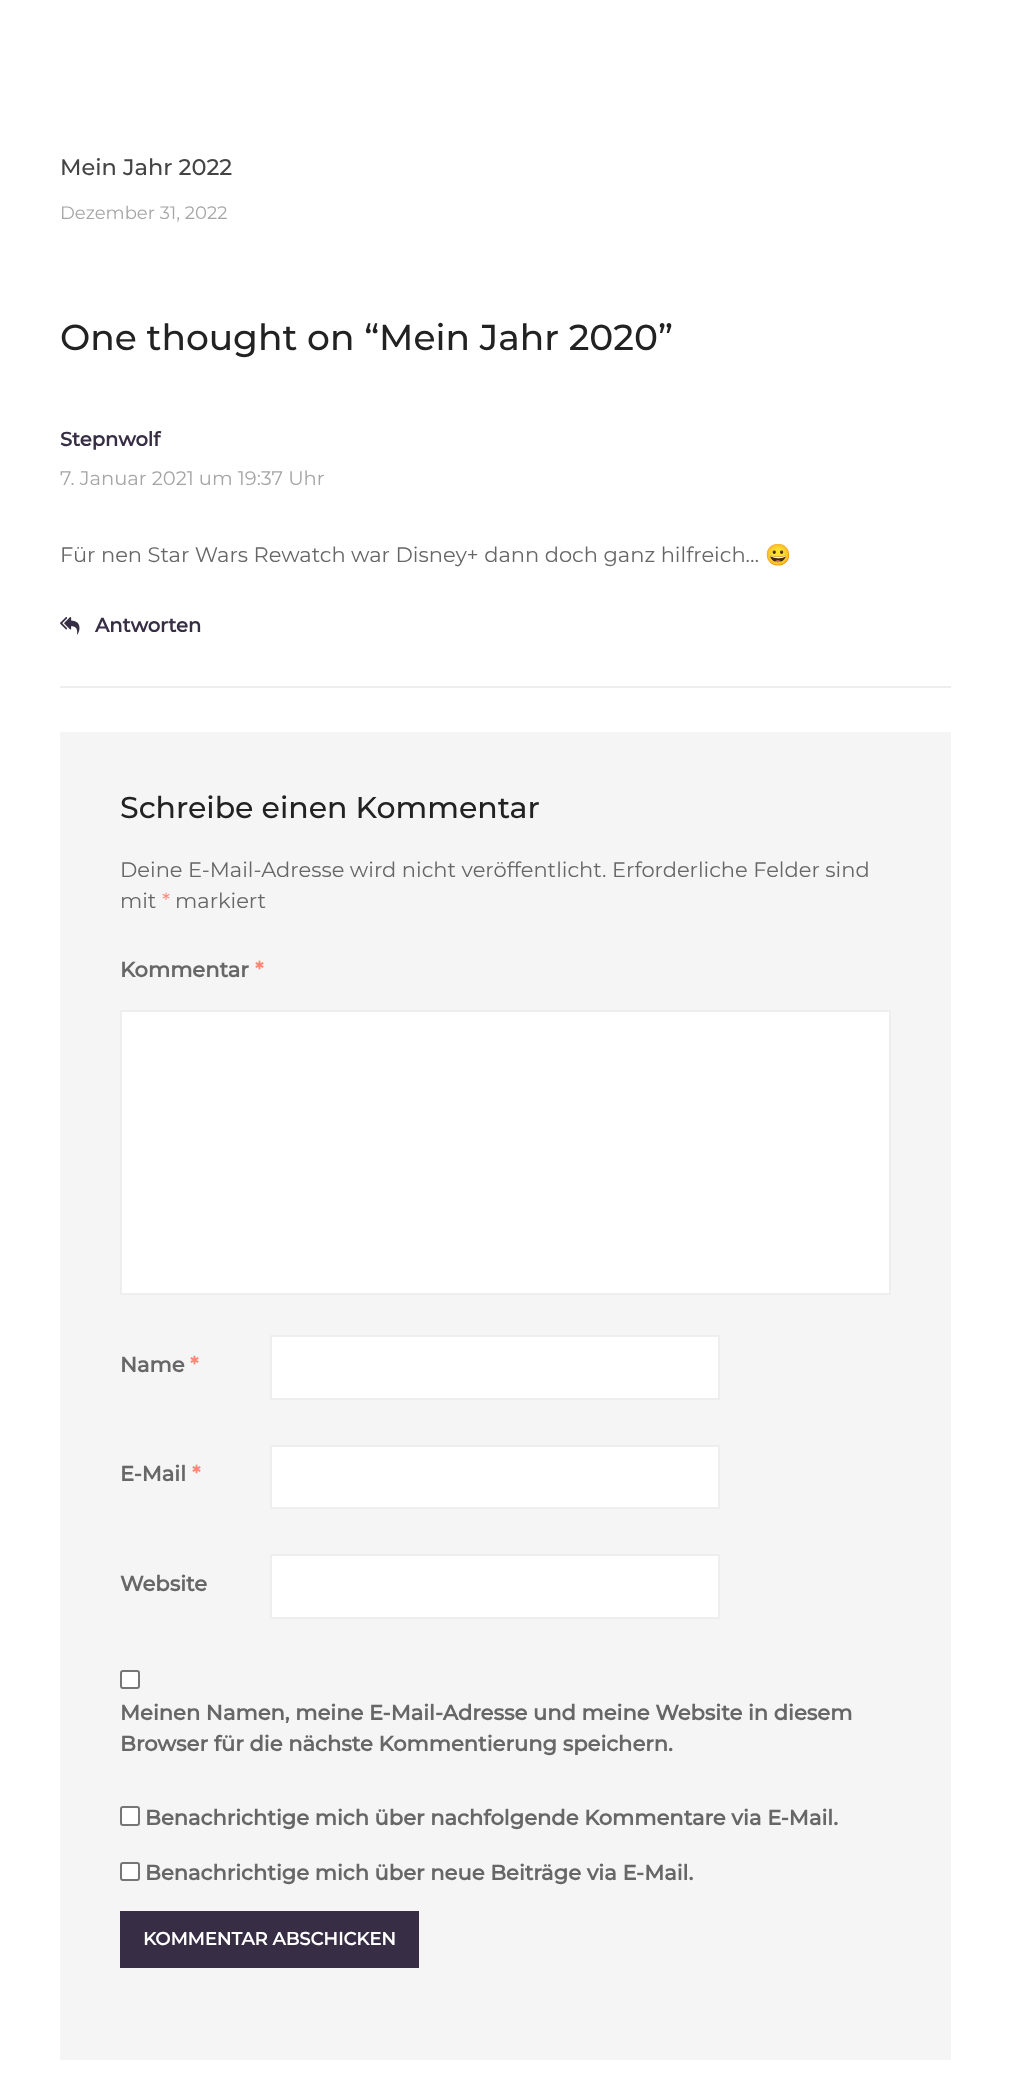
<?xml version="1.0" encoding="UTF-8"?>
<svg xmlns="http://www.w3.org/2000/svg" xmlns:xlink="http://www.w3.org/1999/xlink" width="1010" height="2093">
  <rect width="100%" height="100%" fill="#ffffff" />
  <rect x="60" y="686" width="891" height="2" fill="#eeeeee" />
  <image x="60" y="617" width="20" height="18" xlink:href="image1.png" />
  <rect x="60" y="732" width="891" height="1328" fill="#f5f5f5" />
  <rect x="121" y="1011" width="769" height="283" fill="#ffffff" stroke="#eeeeee" stroke-width="2" />
  <rect x="271" y="1336" width="448" height="63" fill="#ffffff" stroke="#eeeeee" stroke-width="2" />
  <rect x="271" y="1446" width="448" height="62" fill="#ffffff" stroke="#eeeeee" stroke-width="2" />
  <rect x="271" y="1555" width="448" height="63" fill="#ffffff" stroke="#eeeeee" stroke-width="2" />
  <rect x="121" y="1671" width="18" height="17" rx="2" fill="#ffffff" stroke="#767676" stroke-width="2" />
  <rect x="121" y="1807" width="18" height="18" rx="2" fill="#ffffff" stroke="#767676" stroke-width="2" />
  <rect x="121" y="1863" width="18" height="17" rx="2" fill="#ffffff" stroke="#767676" stroke-width="2" />
  <rect x="120" y="1911" width="299" height="57" fill="#372d44" />
  <text x="60" y="175" style="font-family: Montserrat; font-size: 22.5px; font-weight: 500; fill: #444444">Mein Jahr 2022</text>
  <text x="60" y="219" style="font-family: Montserrat; font-size: 18px; fill: #a5a5a5">Dezember 31, 2022</text>
  <text x="60" y="350" style="font-family: Montserrat; font-size: 36px; font-weight: 500; fill: #222222">One thought on “Mein Jahr 2020”</text>
  <text x="60" y="446" style="font-family: Montserrat; font-size: 19.5px; font-weight: bold; fill: #372d44">Stepnwolf</text>
  <text x="60" y="485" style="font-family: Montserrat; font-size: 19.5px; fill: #a5a5a5">7. Januar 2021 um 19:37 Uhr</text>
  <text x="60" y="562" style="font-family: Montserrat; font-size: 21px; fill: #676767">Für nen Star Wars Rewatch war Disney+ dann doch ganz hilfreich…</text>
  <text x="765" y="562" style="font-family: Noto Color Emoji; font-size: 21px; fill: #676767">😀</text>
  <text x="95" y="632" style="font-family: Montserrat; font-size: 19.5px; font-weight: bold; fill: #372d44">Antworten</text>
  <text x="120" y="818" style="font-family: Montserrat; font-size: 30px; font-weight: 500; fill: #222222">Schreibe einen Kommentar</text>
  <text x="120" y="877" style="font-family: Montserrat; font-size: 21px; fill: #676767">Deine E-Mail-Adresse wird nicht veröffentlicht. Erforderliche Felder sind</text>
  <text x="120" y="908" style="font-family: Montserrat; font-size: 21px; fill: #676767">mit</text>
  <text x="162" y="908" style="font-family: Montserrat; font-size: 21px; fill: #ff8778">*</text>
  <text x="175" y="908" style="font-family: Montserrat; font-size: 21px; fill: #676767">markiert</text>
  <text x="120" y="977" style="font-family: Montserrat; font-size: 21px; font-weight: bold; fill: #676767">Kommentar</text>
  <text x="255" y="977" style="font-family: Montserrat; font-size: 21px; font-weight: bold; fill: #ff8778">*</text>
  <text x="120" y="1372" style="font-family: Montserrat; font-size: 21px; font-weight: bold; fill: #676767">Name</text>
  <text x="190" y="1372" style="font-family: Montserrat; font-size: 21px; font-weight: bold; fill: #ff8778">*</text>
  <text x="120" y="1481" style="font-family: Montserrat; font-size: 21px; font-weight: bold; fill: #676767">E-Mail</text>
  <text x="192" y="1481" style="font-family: Montserrat; font-size: 21px; font-weight: bold; fill: #ff8778">*</text>
  <text x="120" y="1591" style="font-family: Montserrat; font-size: 21px; font-weight: bold; fill: #676767">Website</text>
  <text x="120" y="1720" style="font-family: Montserrat; font-size: 21px; font-weight: bold; fill: #676767">Meinen Namen, meine E-Mail-Adresse und meine Website in diesem</text>
  <text x="120" y="1751" style="font-family: Montserrat; font-size: 21px; font-weight: bold; fill: #676767">Browser für die nächste Kommentierung speichern.</text>
  <text x="145" y="1825" style="font-family: Montserrat; font-size: 21px; font-weight: bold; fill: #676767">Benachrichtige mich über nachfolgende Kommentare via E-Mail.</text>
  <text x="145" y="1880" style="font-family: Montserrat; font-size: 21px; font-weight: bold; fill: #676767">Benachrichtige mich über neue Beiträge via E-Mail.</text>
  <text x="143" y="1945" style="font-family: Montserrat; font-size: 18px; font-weight: bold; fill: #ffffff">KOMMENTAR ABSCHICKEN</text>
</svg>
